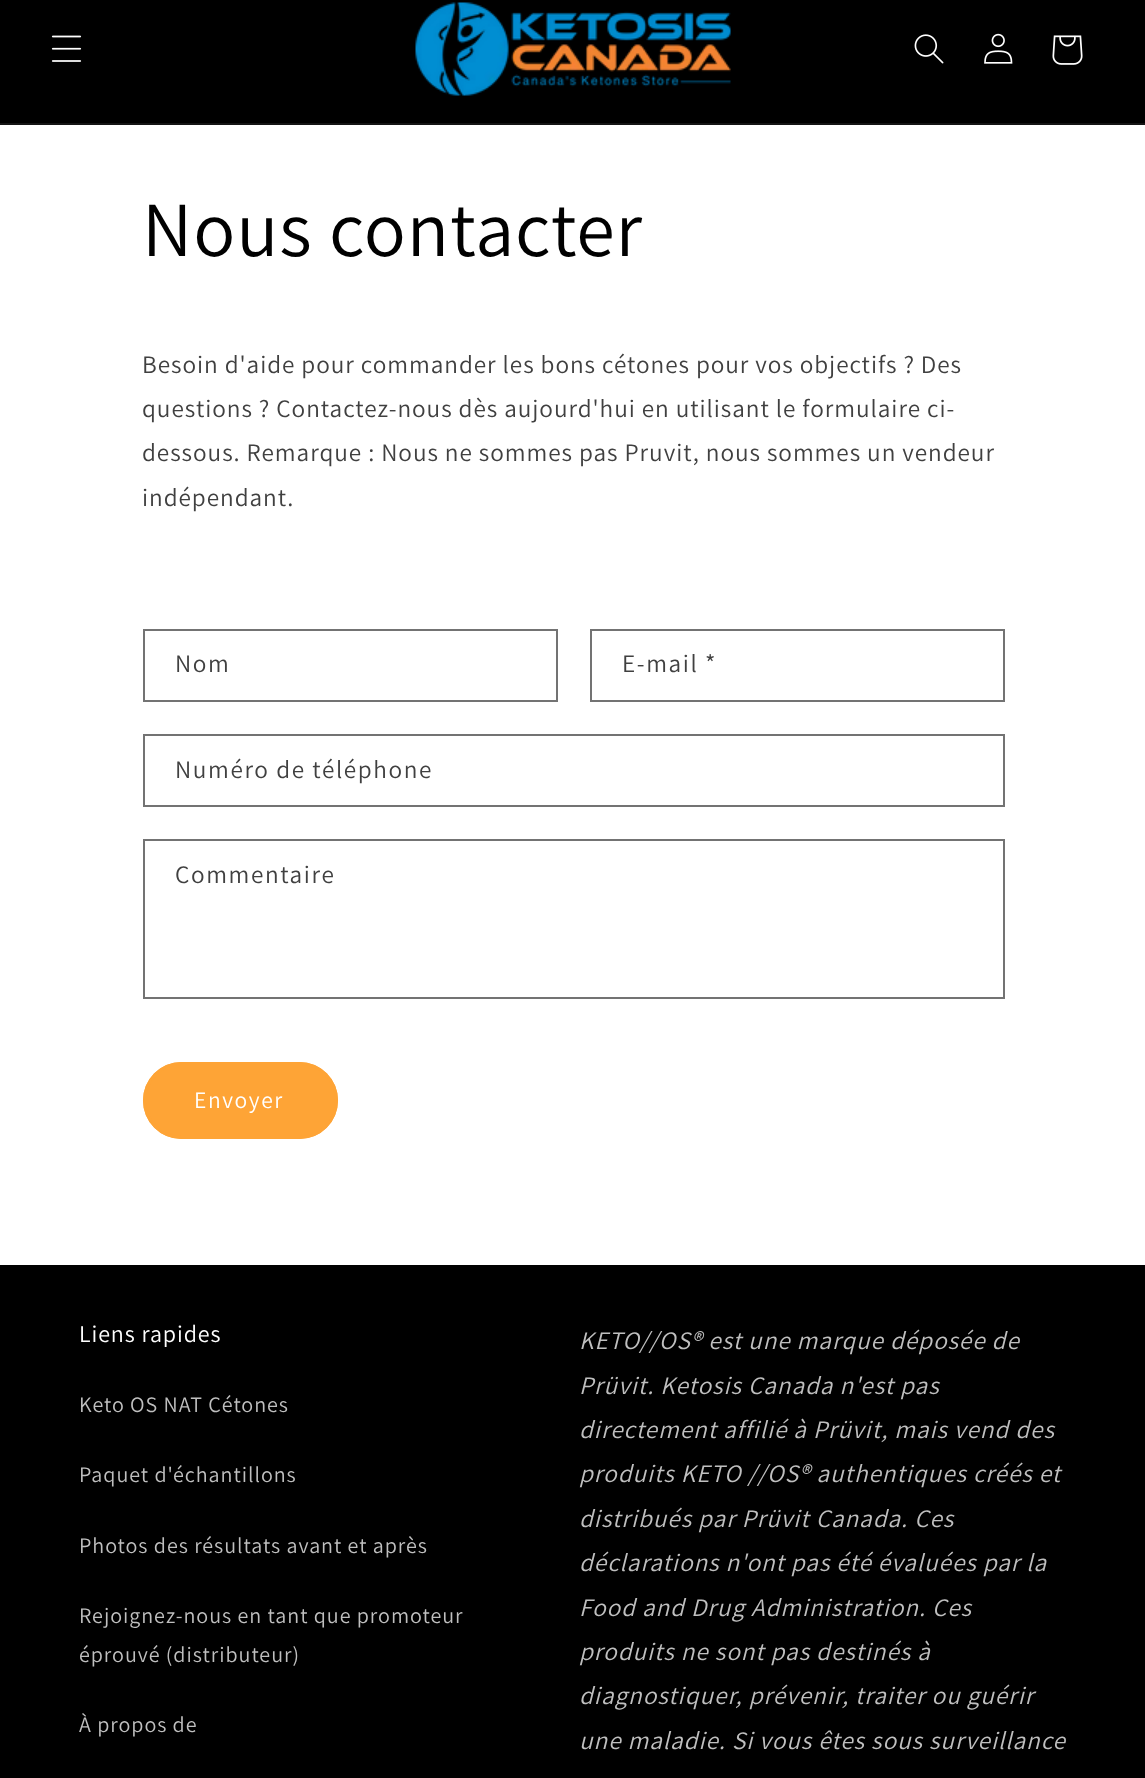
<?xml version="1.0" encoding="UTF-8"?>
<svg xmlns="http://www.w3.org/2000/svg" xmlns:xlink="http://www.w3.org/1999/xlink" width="1145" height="1778">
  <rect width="100%" height="100%" fill="#ffffff" />
  <rect width="1145" height="123" fill="#000000" />
  <rect y="123" width="1145" height="2" fill="#141414" />
  <image x="51" y="35" width="31" height="27" xlink:href="image1.png" />
  <image x="415" y="2" width="316" height="94" xlink:href="image2.png" />
  <image x="914" y="34" width="30" height="30" xlink:href="image3.png" />
  <image x="984" y="33" width="29" height="31" xlink:href="image4.png" />
  <image x="1052" y="35" width="31" height="30" xlink:href="image5.png" />
  <rect x="144" y="630" width="413" height="71" fill="none" stroke="#737373" stroke-width="2" />
  <rect x="591" y="630" width="413" height="71" fill="none" stroke="#737373" stroke-width="2" />
  <rect x="144" y="735" width="860" height="71" fill="none" stroke="#737373" stroke-width="2" />
  <rect x="144" y="840" width="860" height="158" fill="none" stroke="#737373" stroke-width="2" />
  <rect x="143" y="1062" width="195" height="77" rx="38.5" fill="#fea436" />
  <rect x="144.5" y="1063.5" width="192" height="74" rx="37" fill="none" stroke="#fea436" stroke-width="3" />
  <rect y="1265" width="1145" height="513" fill="#000000" />
  <text x="142" y="256" style="font-family: Assistant; font-size: 78px; letter-spacing: 0.9px; fill: #000000">Nous contacter</text>
  <text x="142" y="373" style="font-family: Assistant; font-size: 25.2px; letter-spacing: 0.95px; fill: #404040">Besoin d'aide pour commander les bons cétones pour vos objectifs ? Des</text>
  <text x="142" y="417" style="font-family: Assistant; font-size: 25.2px; letter-spacing: 0.95px; fill: #404040">questions ? Contactez-nous dès aujourd'hui en utilisant le formulaire ci-</text>
  <text x="142" y="461" style="font-family: Assistant; font-size: 25.2px; letter-spacing: 0.95px; fill: #404040">dessous. Remarque : Nous ne sommes pas Pruvit, nous sommes un vendeur</text>
  <text x="142" y="506" style="font-family: Assistant; font-size: 25.2px; letter-spacing: 0.95px; fill: #404040">indépendant.</text>
  <text x="175" y="672" style="font-family: Assistant; font-size: 25.2px; letter-spacing: 1.6px; fill: #404040">Nom</text>
  <text x="622" y="672" style="font-family: Assistant; font-size: 25.2px; letter-spacing: 1.6px; fill: #404040">E-mail *</text>
  <text x="175" y="778" style="font-family: Assistant; font-size: 25.2px; letter-spacing: 1.6px; fill: #404040">Numéro de téléphone</text>
  <text x="175" y="883" style="font-family: Assistant; font-size: 25.2px; letter-spacing: 1.6px; fill: #404040">Commentaire</text>
  <text x="194" y="1108" style="font-family: Assistant; font-size: 23.5px; letter-spacing: 1.6px; fill: #ffffff">Envoyer</text>
  <text x="79" y="1342" style="font-family: Assistant; font-size: 24px; letter-spacing: 0.9px; fill: #ffffff">Liens rapides</text>
  <text x="79" y="1412" style="font-family: Assistant; font-size: 22px; letter-spacing: 0.95px; fill: #bfbfbf">Keto OS NAT Cétones</text>
  <text x="79" y="1482" style="font-family: Assistant; font-size: 22px; letter-spacing: 0.95px; fill: #bfbfbf">Paquet d'échantillons</text>
  <text x="79" y="1553" style="font-family: Assistant; font-size: 22px; letter-spacing: 0.95px; fill: #bfbfbf">Photos des résultats avant et après</text>
  <text x="79" y="1623" style="font-family: Assistant; font-size: 22px; letter-spacing: 0.95px; fill: #bfbfbf">Rejoignez-nous en tant que promoteur</text>
  <text x="79" y="1662" style="font-family: Assistant; font-size: 22px; letter-spacing: 0.95px; fill: #bfbfbf">éprouvé (distributeur)</text>
  <text x="79" y="1732" style="font-family: Assistant; font-size: 22px; letter-spacing: 0.95px; fill: #bfbfbf">À propos de</text>
  <text x="579" y="1349" style="font-family: Assistant; font-size: 25.2px; font-style: italic; letter-spacing: 0.95px; fill: #bfbfbf">KETO//OS® est une marque déposée de</text>
  <text x="579" y="1394" style="font-family: Assistant; font-size: 25.2px; font-style: italic; letter-spacing: 0.95px; fill: #bfbfbf">Prüvit. Ketosis Canada n'est pas</text>
  <text x="579" y="1438" style="font-family: Assistant; font-size: 25.2px; font-style: italic; letter-spacing: 0.95px; fill: #bfbfbf">directement affilié à Prüvit, mais vend des</text>
  <text x="579" y="1482" style="font-family: Assistant; font-size: 25.2px; font-style: italic; letter-spacing: 0.95px; fill: #bfbfbf">produits KETO //OS® authentiques créés et</text>
  <text x="579" y="1527" style="font-family: Assistant; font-size: 25.2px; font-style: italic; letter-spacing: 0.95px; fill: #bfbfbf">distribués par Prüvit Canada. Ces</text>
  <text x="579" y="1571" style="font-family: Assistant; font-size: 25.2px; font-style: italic; letter-spacing: 0.95px; fill: #bfbfbf">déclarations n'ont pas été évaluées par la</text>
  <text x="579" y="1616" style="font-family: Assistant; font-size: 25.2px; font-style: italic; letter-spacing: 0.95px; fill: #bfbfbf">Food and Drug Administration. Ces</text>
  <text x="579" y="1660" style="font-family: Assistant; font-size: 25.2px; font-style: italic; letter-spacing: 0.95px; fill: #bfbfbf">produits ne sont pas destinés à</text>
  <text x="579" y="1704" style="font-family: Assistant; font-size: 25.2px; font-style: italic; letter-spacing: 0.95px; fill: #bfbfbf">diagnostiquer, prévenir, traiter ou guérir</text>
  <text x="579" y="1749" style="font-family: Assistant; font-size: 25.2px; font-style: italic; letter-spacing: 0.95px; fill: #bfbfbf">une maladie. Si vous êtes sous surveillance</text>
</svg>
